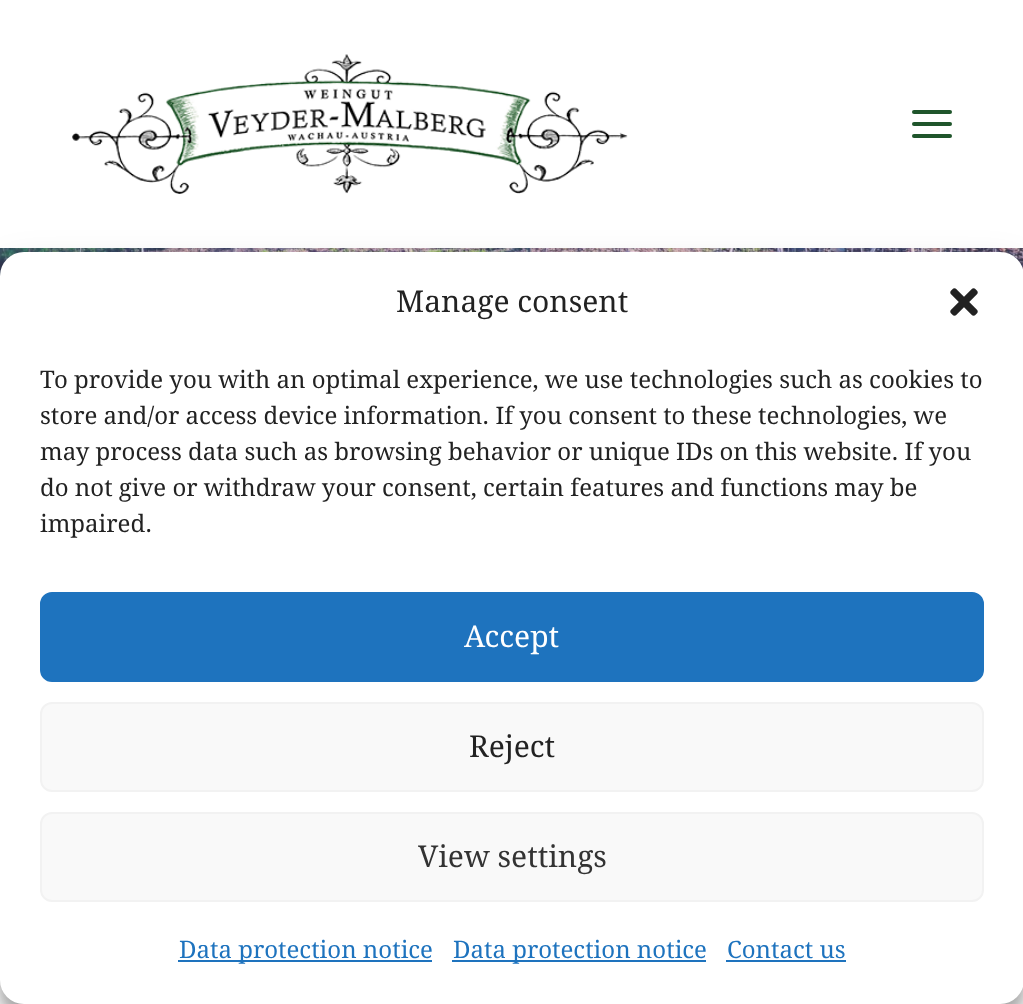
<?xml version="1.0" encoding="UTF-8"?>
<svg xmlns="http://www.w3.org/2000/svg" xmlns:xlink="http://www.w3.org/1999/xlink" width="1023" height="1004">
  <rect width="100%" height="100%" fill="#ffffff" />
  <image x="72" y="54" width="556" height="140" xlink:href="image1.png" />
  <rect x="912" y="122" width="40" height="4" rx="2" fill="#1f552b" />
  <rect x="912" y="110" width="40" height="4" rx="2" fill="#1f552b" />
  <rect x="912" y="134" width="40" height="4" rx="2" fill="#1f552b" />
  <image x="0" y="248" width="1023" height="28" xlink:href="image2.png" />
  <rect y="264" width="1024" height="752" rx="24" fill="#000000" fill-opacity="0.23" filter="blur(6px)" />
  <rect y="272" width="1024" height="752" rx="24" fill="#000000" fill-opacity="0.19" filter="blur(20px)" />
  <rect y="252" width="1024" height="752" rx="24" fill="#ffffff" />
  <image x="950" y="288" width="28" height="28" xlink:href="image3.png" />
  <rect x="41" y="593" width="942" height="88" rx="11" fill="#1e73be" stroke="#1e73be" stroke-width="2" />
  <rect x="41" y="703" width="942" height="88" rx="11" fill="#f9f9f9" stroke="#f2f2f2" stroke-width="2" />
  <rect x="41" y="813" width="942" height="88" rx="11" fill="#f9f9f9" stroke="#f2f2f2" stroke-width="2" />
  <rect x="178" y="960" width="254" height="2" fill="#1e73be" />
  <rect x="452" y="960" width="254" height="2" fill="#1e73be" />
  <rect x="726" y="960" width="120" height="2" fill="#1e73be" />
  <text x="396" y="312" style="font-family: Droid Serif; font-size: 30px; fill: #222222">Manage consent</text>
  <text x="40" y="388" style="font-family: Droid Serif; font-size: 24px; fill: #222222">To provide you with an optimal experience, we use technologies such as cookies to</text>
  <text x="40" y="424" style="font-family: Droid Serif; font-size: 24px; fill: #222222">store and/or access device information. If you consent to these technologies, we</text>
  <text x="40" y="460" style="font-family: Droid Serif; font-size: 24px; fill: #222222">may process data such as browsing behavior or unique IDs on this website. If you</text>
  <text x="40" y="496" style="font-family: Droid Serif; font-size: 24px; fill: #222222">do not give or withdraw your consent, certain features and functions may be</text>
  <text x="40" y="532" style="font-family: Droid Serif; font-size: 24px; fill: #222222">impaired.</text>
  <text x="464" y="647" style="font-family: Droid Serif; font-size: 30px; fill: #ffffff">Accept</text>
  <text x="469" y="757" style="font-family: Droid Serif; font-size: 30px; fill: #222222">Reject</text>
  <text x="418" y="867" style="font-family: Droid Serif; font-size: 30px; fill: #333333">View settings</text>
  <text x="179" y="958" style="font-family: Droid Serif; font-size: 24px; fill: #1e73be">Data protection notice</text>
  <text x="453" y="958" style="font-family: Droid Serif; font-size: 24px; fill: #1e73be">Data protection notice</text>
  <text x="727" y="958" style="font-family: Droid Serif; font-size: 24px; fill: #1e73be">Contact us</text>
</svg>
